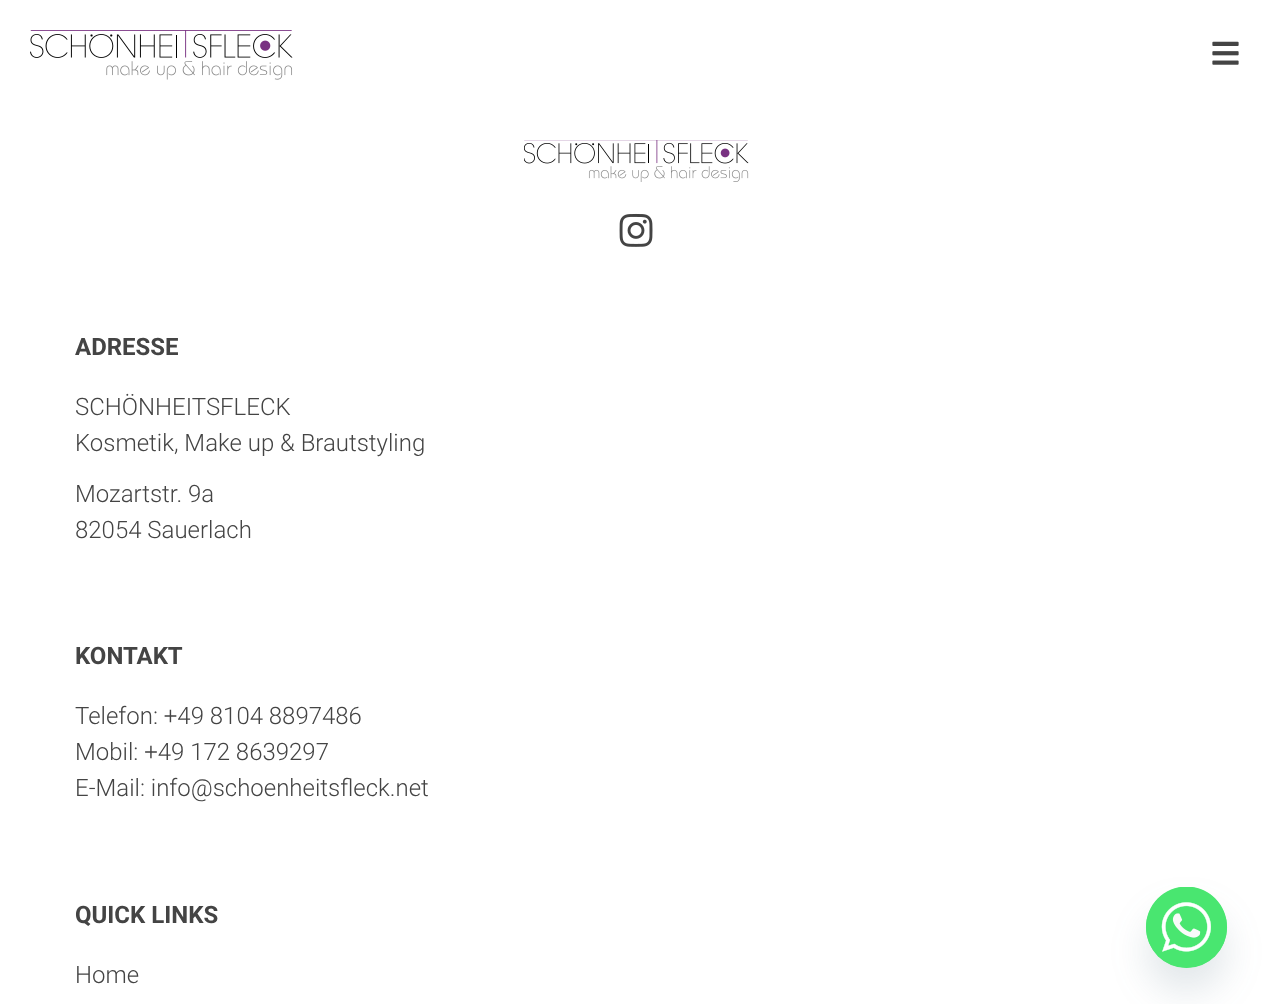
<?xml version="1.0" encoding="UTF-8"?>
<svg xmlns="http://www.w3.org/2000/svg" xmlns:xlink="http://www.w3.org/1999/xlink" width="1270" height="1004">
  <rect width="100%" height="100%" fill="#ffffff" />
  <image x="30" y="30" width="263" height="50" xlink:href="image1.png" />
  <image x="1212" y="41" width="27" height="24" xlink:href="image2.png" />
  <image x="524" y="140" width="225" height="42" xlink:href="image3.png" />
  <image x="619" y="213" width="34" height="34" xlink:href="image4.png" />
  <rect x="1146" y="911" width="81" height="81" rx="40.5" fill="#49687e" fill-opacity="0.16" filter="blur(18px)" />
  <circle cx="1186.5" cy="927.5" r="40.5" fill="#49e670" />
  <image x="1146" y="887" width="81" height="81" xlink:href="image5.png" />
  <text x="75" y="355" style="font-family: Roboto; font-size: 24px; font-weight: bold; fill: #444444">ADRESSE</text>
  <text x="75" y="415" style="font-family: Roboto; font-size: 24px; font-weight: 300; fill: #444444">SCHÖNHEITSFLECK</text>
  <text x="75" y="451" style="font-family: Roboto; font-size: 24px; font-weight: 300; fill: #444444">Kosmetik, Make up &amp; Brautstyling</text>
  <text x="75" y="502" style="font-family: Roboto; font-size: 24px; font-weight: 300; fill: #444444">Mozartstr. 9a</text>
  <text x="75" y="538" style="font-family: Roboto; font-size: 24px; font-weight: 300; fill: #444444">82054 Sauerlach</text>
  <text x="75" y="664" style="font-family: Roboto; font-size: 24px; font-weight: bold; fill: #444444">KONTAKT</text>
  <text x="75" y="724" style="font-family: Roboto; font-size: 24px; font-weight: 300; fill: #444444">Telefon: +49 8104 8897486</text>
  <text x="75" y="760" style="font-family: Roboto; font-size: 24px; font-weight: 300; fill: #444444">Mobil: +49 172 8639297</text>
  <text x="75" y="796" style="font-family: Roboto; font-size: 24px; font-weight: 300; fill: #444444">E-Mail: info@schoenheitsfleck.net</text>
  <text x="75" y="923" style="font-family: Roboto; font-size: 24px; font-weight: bold; fill: #444444">QUICK LINKS</text>
  <text x="75" y="983" style="font-family: Roboto; font-size: 24px; font-weight: 300; fill: #444444">Home</text>
</svg>
